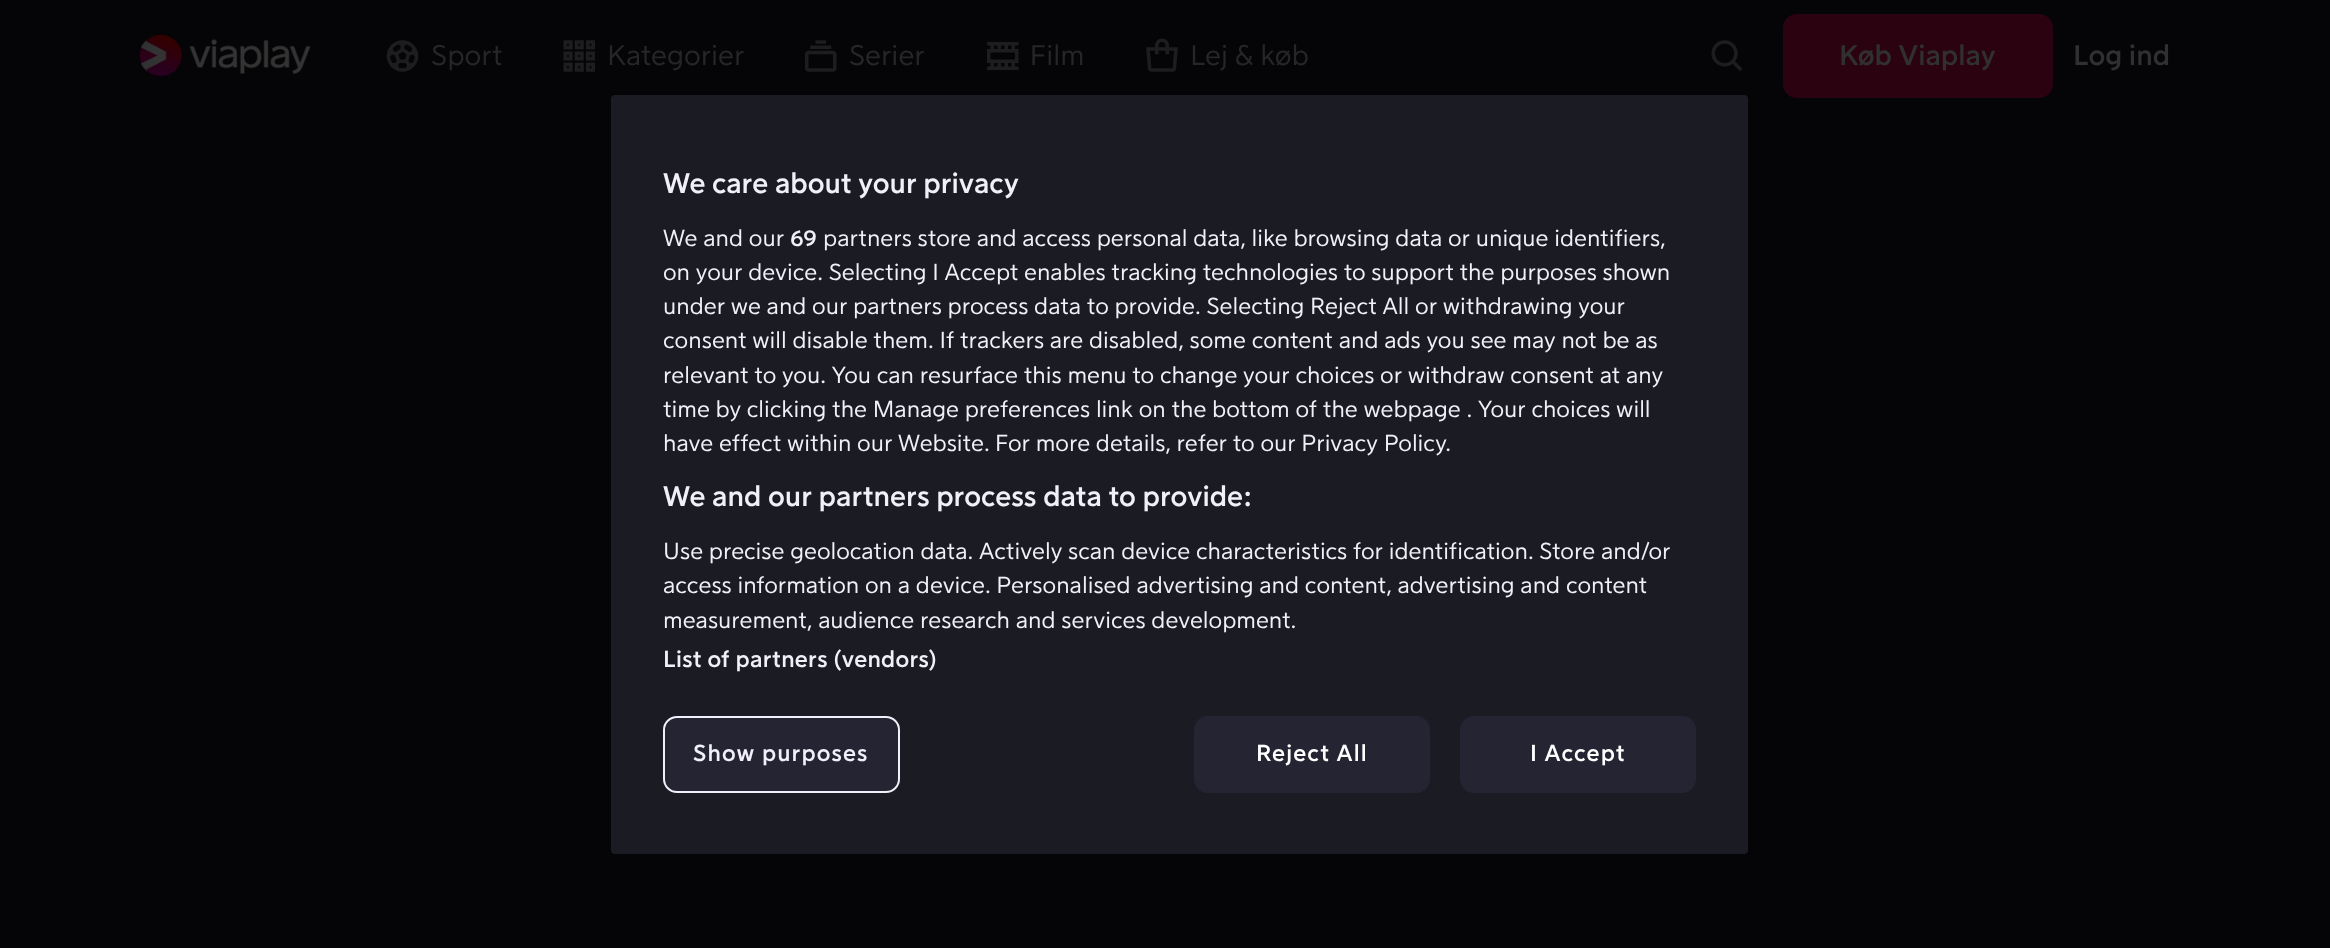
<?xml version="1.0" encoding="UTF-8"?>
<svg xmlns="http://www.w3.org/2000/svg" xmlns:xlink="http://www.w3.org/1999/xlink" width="2330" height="948">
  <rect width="100%" height="100%" fill="#050507" />
  <image x="140" y="35" width="171" height="42" xlink:href="image1.png" />
  <image x="386" y="40" width="33" height="32" xlink:href="image2.png" />
  <image x="563" y="40" width="32" height="32" xlink:href="image3.png" />
  <image x="805" y="40" width="32" height="32" xlink:href="image4.png" />
  <image x="987" y="42" width="32" height="28" xlink:href="image5.png" />
  <image x="1146" y="38" width="32" height="34" xlink:href="image6.png" />
  <image x="1711" y="40" width="32" height="31" xlink:href="image7.png" />
  <rect x="1783" y="14" width="270" height="84" rx="14" fill="#2b0210" />
  <rect x="611" y="95" width="1137" height="759" rx="4" fill="#1b1b24" />
  <rect x="664" y="717" width="235" height="75" rx="13" fill="#252433" stroke="#f1f0fa" stroke-width="2" />
  <rect x="1195" y="717" width="234" height="75" rx="13" fill="#252433" stroke="#252433" stroke-width="2" />
  <rect x="1461" y="717" width="234" height="75" rx="13" fill="#252433" stroke="#252433" stroke-width="2" />
  <text x="431" y="65" style="font-family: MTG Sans; font-size: 28px; fill: #262627">Sport</text>
  <text x="607" y="65" style="font-family: MTG Sans; font-size: 28px; fill: #262627">Kategorier</text>
  <text x="849" y="65" style="font-family: MTG Sans; font-size: 28px; fill: #262627">Serier</text>
  <text x="1030" y="65" style="font-family: MTG Sans; font-size: 28px; fill: #262627">Film</text>
  <text x="1190" y="65" style="font-family: MTG Sans; font-size: 28px; fill: #262627">Lej &amp; køb</text>
  <text x="1839" y="65" style="font-family: MTG Sans; font-size: 28px; font-weight: bold; fill: #303030">Køb Viaplay</text>
  <text x="2073" y="65" style="font-family: MTG Sans; font-size: 28px; font-weight: bold; fill: #303030">Log ind</text>
  <text x="663" y="193" style="font-family: MTG Sans; font-size: 28px; font-weight: bold; fill: #f1f0fa">We care about your privacy</text>
  <text x="663" y="246" style="font-family: MTG Sans; font-size: 22.75px; fill: #f1f0fa">We and our</text>
  <text x="790" y="246" style="font-family: MTG Sans; font-size: 22.75px; font-weight: bold; fill: #f1f0fa">69</text>
  <text x="823" y="246" style="font-family: MTG Sans; font-size: 22.75px; fill: #f1f0fa">partners store and access personal data, like browsing data or unique identifiers,</text>
  <text x="663" y="280" style="font-family: MTG Sans; font-size: 22.75px; fill: #f1f0fa">on your device. Selecting I Accept enables tracking technologies to support the purposes shown</text>
  <text x="663" y="314" style="font-family: MTG Sans; font-size: 22.75px; fill: #f1f0fa">under we and our partners process data to provide. Selecting Reject All or withdrawing your</text>
  <text x="663" y="348" style="font-family: MTG Sans; font-size: 22.75px; fill: #f1f0fa">consent will disable them. If trackers are disabled, some content and ads you see may not be as</text>
  <text x="663" y="383" style="font-family: MTG Sans; font-size: 22.75px; fill: #f1f0fa">relevant to you. You can resurface this menu to change your choices or withdraw consent at any</text>
  <text x="663" y="417" style="font-family: MTG Sans; font-size: 22.75px; fill: #f1f0fa">time by clicking the Manage preferences link on the bottom of the webpage . Your choices will</text>
  <text x="663" y="451" style="font-family: MTG Sans; font-size: 22.75px; fill: #f1f0fa">have effect within our Website. For more details, refer to our Privacy Policy.</text>
  <text x="663" y="506" style="font-family: MTG Sans; font-size: 28px; font-weight: bold; fill: #f1f0fa">We and our partners process data to provide:</text>
  <text x="663" y="559" style="font-family: MTG Sans; font-size: 22.75px; fill: #f1f0fa">Use precise geolocation data. Actively scan device characteristics for identification. Store and/or</text>
  <text x="663" y="593" style="font-family: MTG Sans; font-size: 22.75px; fill: #f1f0fa">access information on a device. Personalised advertising and content, advertising and content</text>
  <text x="663" y="628" style="font-family: MTG Sans; font-size: 22.75px; fill: #f1f0fa">measurement, audience research and services development.</text>
  <text x="663" y="667" style="font-family: MTG Sans; font-size: 22.75px; font-weight: bold; letter-spacing: 0.25px; fill: #f1f0fa">List of partners (vendors)</text>
  <text x="693" y="761" style="font-family: MTG Sans; font-size: 22.75px; font-weight: bold; letter-spacing: 1.1px; fill: #f1f0fa">Show purposes</text>
  <text x="1256" y="761" style="font-family: MTG Sans; font-size: 22.75px; font-weight: bold; letter-spacing: 1.1px; fill: #ffffff">Reject All</text>
  <text x="1530" y="761" style="font-family: MTG Sans; font-size: 22.75px; font-weight: bold; letter-spacing: 1.1px; fill: #ffffff">I Accept</text>
</svg>
